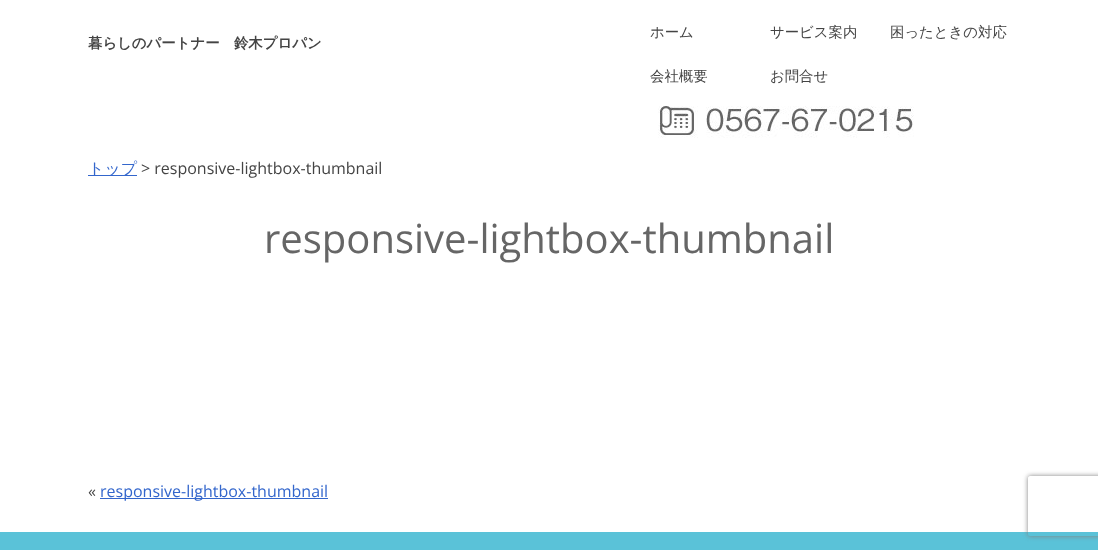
<?xml version="1.0" encoding="UTF-8"?>
<svg xmlns="http://www.w3.org/2000/svg" xmlns:xlink="http://www.w3.org/1999/xlink" width="1098" height="550">
  <defs>
    <clipPath id="clip1"><path d="M 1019 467 h 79 v 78 h -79 z m 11 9 h 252 c 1 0 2 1 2 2 v 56 c 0 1 -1 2 -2 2 h -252 c -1 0 -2 -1 -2 -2 v -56 c 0 -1 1 -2 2 -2 z" clip-rule="evenodd" /></clipPath>
  </defs>
  <rect width="100%" height="100%" fill="#ffffff" />
  <image x="658" y="106" width="256" height="32" xlink:href="image1.png" />
  <rect x="88" y="175" width="49" height="1" fill="#3366cc" />
  <rect x="100" y="498" width="228" height="1" fill="#3366cc" />
  <rect y="532" width="1098" height="18" fill="#5ac2d8" />
  <g clip-path="url(#clip1)">
    <rect x="1028" y="476" width="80" height="60" rx="2" fill="#808080" filter="blur(2.5px)" />
  </g>
  <text x="88" y="48" style="font-family: WenQuanYi Zen Hei; font-size: 14.4px; font-weight: bold; fill: #444444">暮らしのパートナー　鈴木プロパン</text>
  <text x="650" y="37" style="font-family: WenQuanYi Zen Hei; font-size: 14.4px; font-weight: 500; fill: #444444">ホーム</text>
  <text x="770" y="37" style="font-family: WenQuanYi Zen Hei; font-size: 14.4px; font-weight: 500; fill: #444444">サービス案内</text>
  <text x="890" y="37" style="font-family: WenQuanYi Zen Hei; font-size: 14.4px; font-weight: 500; fill: #444444">困ったときの対応</text>
  <text x="650" y="81" style="font-family: WenQuanYi Zen Hei; font-size: 14.4px; font-weight: 500; fill: #444444">会社概要</text>
  <text x="770" y="81" style="font-family: WenQuanYi Zen Hei; font-size: 14.4px; font-weight: 500; fill: #444444">お問合せ</text>
  <text x="88" y="174" style="font-family: WenQuanYi Zen Hei; font-size: 16px; font-weight: 500; fill: #3366cc">トップ</text>
  <text x="141" y="174" style="font-family: Open Sans; font-size: 16px; fill: #444444">&gt; responsive-lightbox-thumbnail</text>
  <text x="264" y="253" style="font-family: Open Sans; font-size: 40px; fill: #666666">responsive-lightbox-thumbnail</text>
  <text x="88" y="497" style="font-family: Open Sans; font-size: 16px; fill: #444444">«</text>
  <text x="100" y="497" style="font-family: Open Sans; font-size: 16px; fill: #3366cc">responsive-lightbox-thumbnail</text>
</svg>
